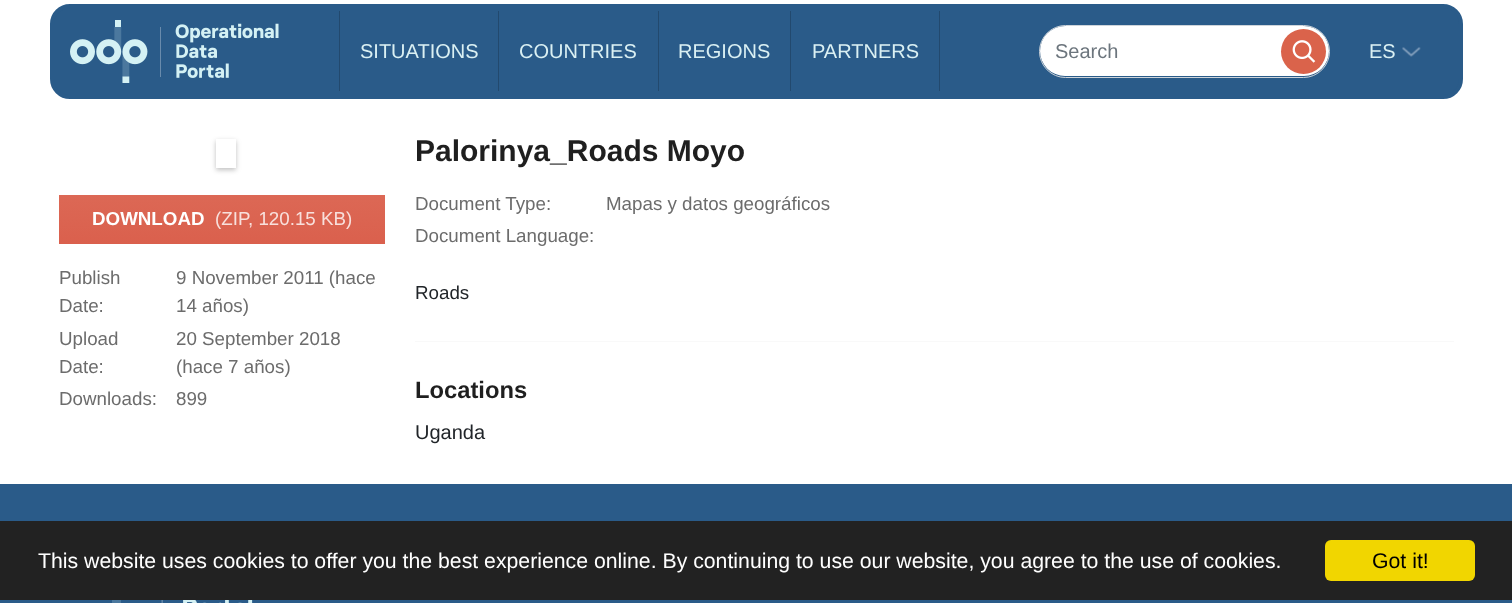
<?xml version="1.0" encoding="UTF-8"?>
<svg xmlns="http://www.w3.org/2000/svg" xmlns:xlink="http://www.w3.org/1999/xlink" width="1512" height="603">
  <defs>
    <linearGradient id="g1" gradientUnits="userSpaceOnUse" x1="222" y1="195" x2="222" y2="244"><stop offset="0" stop-color="#dc6855" /><stop offset="1" stop-color="#da604d" /></linearGradient>
  </defs>
  <rect width="100%" height="100%" fill="#ffffff" />
  <rect x="52" y="6" width="1409" height="91" rx="18" fill="#2a5b89" stroke="#2a5b89" stroke-width="4" />
  <image x="70" y="20" width="209" height="63" xlink:href="image1.png" />
  <rect x="339" y="11" width="1" height="80" fill="#22496e" />
  <rect x="498" y="11" width="1" height="80" fill="#22496e" />
  <rect x="658" y="11" width="1" height="80" fill="#22496e" />
  <rect x="939" y="11" width="1" height="80" fill="#22496e" />
  <rect x="790" y="11" width="1" height="80" fill="#22496e" />
  <rect x="1040" y="26" width="289" height="50" rx="25" fill="#ffffff" />
  <rect x="1039.5" y="25.5" width="290" height="52" rx="26" fill="none" stroke="#ced4da" />
  <circle cx="1303.5" cy="51.5" r="22.5" fill="#da634b" />
  <image x="1292" y="40" width="24" height="23" xlink:href="image2.png" />
  <image x="1402" y="47" width="19" height="10" xlink:href="image3.png" />
  <rect x="216" y="141" width="20" height="29" fill="#000000" fill-opacity="0.25" filter="blur(2.5px)" />
  <rect x="216" y="139" width="20" height="29" fill="#ffffff" />
  <rect x="59" y="195" width="326" height="49" fill="url(#g1)" />
  <rect x="415" y="341" width="1039" height="1" fill="#f9f9f9" />
  <rect y="484" width="1512" height="119" fill="#2a5b89" />
  <image x="112" y="600" width="141" height="3" xlink:href="image4.png" />
  <rect y="521" width="1512" height="79" fill="#222222" />
  <rect x="1325" y="540" width="150" height="41" rx="6" fill="#f1d600" />
  <text x="360" y="58" style="font-family: Liberation Sans; font-size: 20px; fill: #daf0f3">SITUATIONS</text>
  <text x="519" y="58" style="font-family: Liberation Sans; font-size: 20px; fill: #daf0f3">COUNTRIES</text>
  <text x="678" y="58" style="font-family: Liberation Sans; font-size: 20px; fill: #daf0f3">REGIONS</text>
  <text x="812" y="58" style="font-family: Liberation Sans; font-size: 20px; fill: #daf0f3">PARTNERS</text>
  <text x="1055" y="58" style="font-family: Liberation Sans; font-size: 20px; fill: #6c757d">Search</text>
  <text x="1369" y="58" style="font-family: Liberation Sans; font-size: 20px; fill: #daf0f3">ES</text>
  <text x="92" y="225" style="font-family: Liberation Sans; font-size: 18.75px; font-weight: bold; fill: #ffffff">DOWNLOAD</text>
  <text x="215" y="225" style="font-family: Liberation Sans; font-size: 18.75px; fill: #f8e0dc">(ZIP, 120.15 KB)</text>
  <text x="59" y="284" style="font-family: Liberation Sans; font-size: 18.75px; fill: #6c6c6c">Publish</text>
  <text x="59" y="312" style="font-family: Liberation Sans; font-size: 18.75px; fill: #6c6c6c">Date:</text>
  <text x="176" y="284" style="font-family: Liberation Sans; font-size: 18.75px; fill: #6c6c6c">9 November 2011 (hace</text>
  <text x="176" y="312" style="font-family: Liberation Sans; font-size: 18.75px; fill: #6c6c6c">14 años)</text>
  <text x="59" y="345" style="font-family: Liberation Sans; font-size: 18.75px; fill: #6c6c6c">Upload</text>
  <text x="59" y="373" style="font-family: Liberation Sans; font-size: 18.75px; fill: #6c6c6c">Date:</text>
  <text x="176" y="345" style="font-family: Liberation Sans; font-size: 18.75px; fill: #6c6c6c">20 September 2018</text>
  <text x="176" y="373" style="font-family: Liberation Sans; font-size: 18.75px; fill: #6c6c6c">(hace 7 años)</text>
  <text x="59" y="405" style="font-family: Liberation Sans; font-size: 18.75px; fill: #6c6c6c">Downloads:</text>
  <text x="176" y="405" style="font-family: Liberation Sans; font-size: 18.75px; fill: #6c6c6c">899</text>
  <text x="415" y="161" style="font-family: Liberation Sans; font-size: 30px; font-weight: bold; fill: #1f1f1f">Palorinya_Roads Moyo</text>
  <text x="415" y="210" style="font-family: Liberation Sans; font-size: 18.75px; fill: #6c6c6c">Document Type:</text>
  <text x="606" y="210" style="font-family: Liberation Sans; font-size: 18.75px; fill: #6c6c6c">Mapas y datos geográficos</text>
  <text x="415" y="242" style="font-family: Liberation Sans; font-size: 18.75px; fill: #6c6c6c">Document Language:</text>
  <text x="415" y="299" style="font-family: Liberation Sans; font-size: 18.75px; fill: #212529">Roads</text>
  <text x="415" y="398" style="font-family: Liberation Sans; font-size: 23.75px; font-weight: bold; fill: #1f1f1f">Locations</text>
  <text x="415" y="439" style="font-family: Liberation Sans; font-size: 20px; fill: #212529">Uganda</text>
  <text x="38" y="568" style="font-family: Liberation Sans; font-size: 21.25px; fill: #ffffff">This website uses cookies to offer you the best experience online. By continuing to use our website, you agree to the use of cookies.</text>
  <text x="1372" y="568" style="font-family: Liberation Sans; font-size: 21.25px; fill: #000000">Got it!</text>
</svg>
